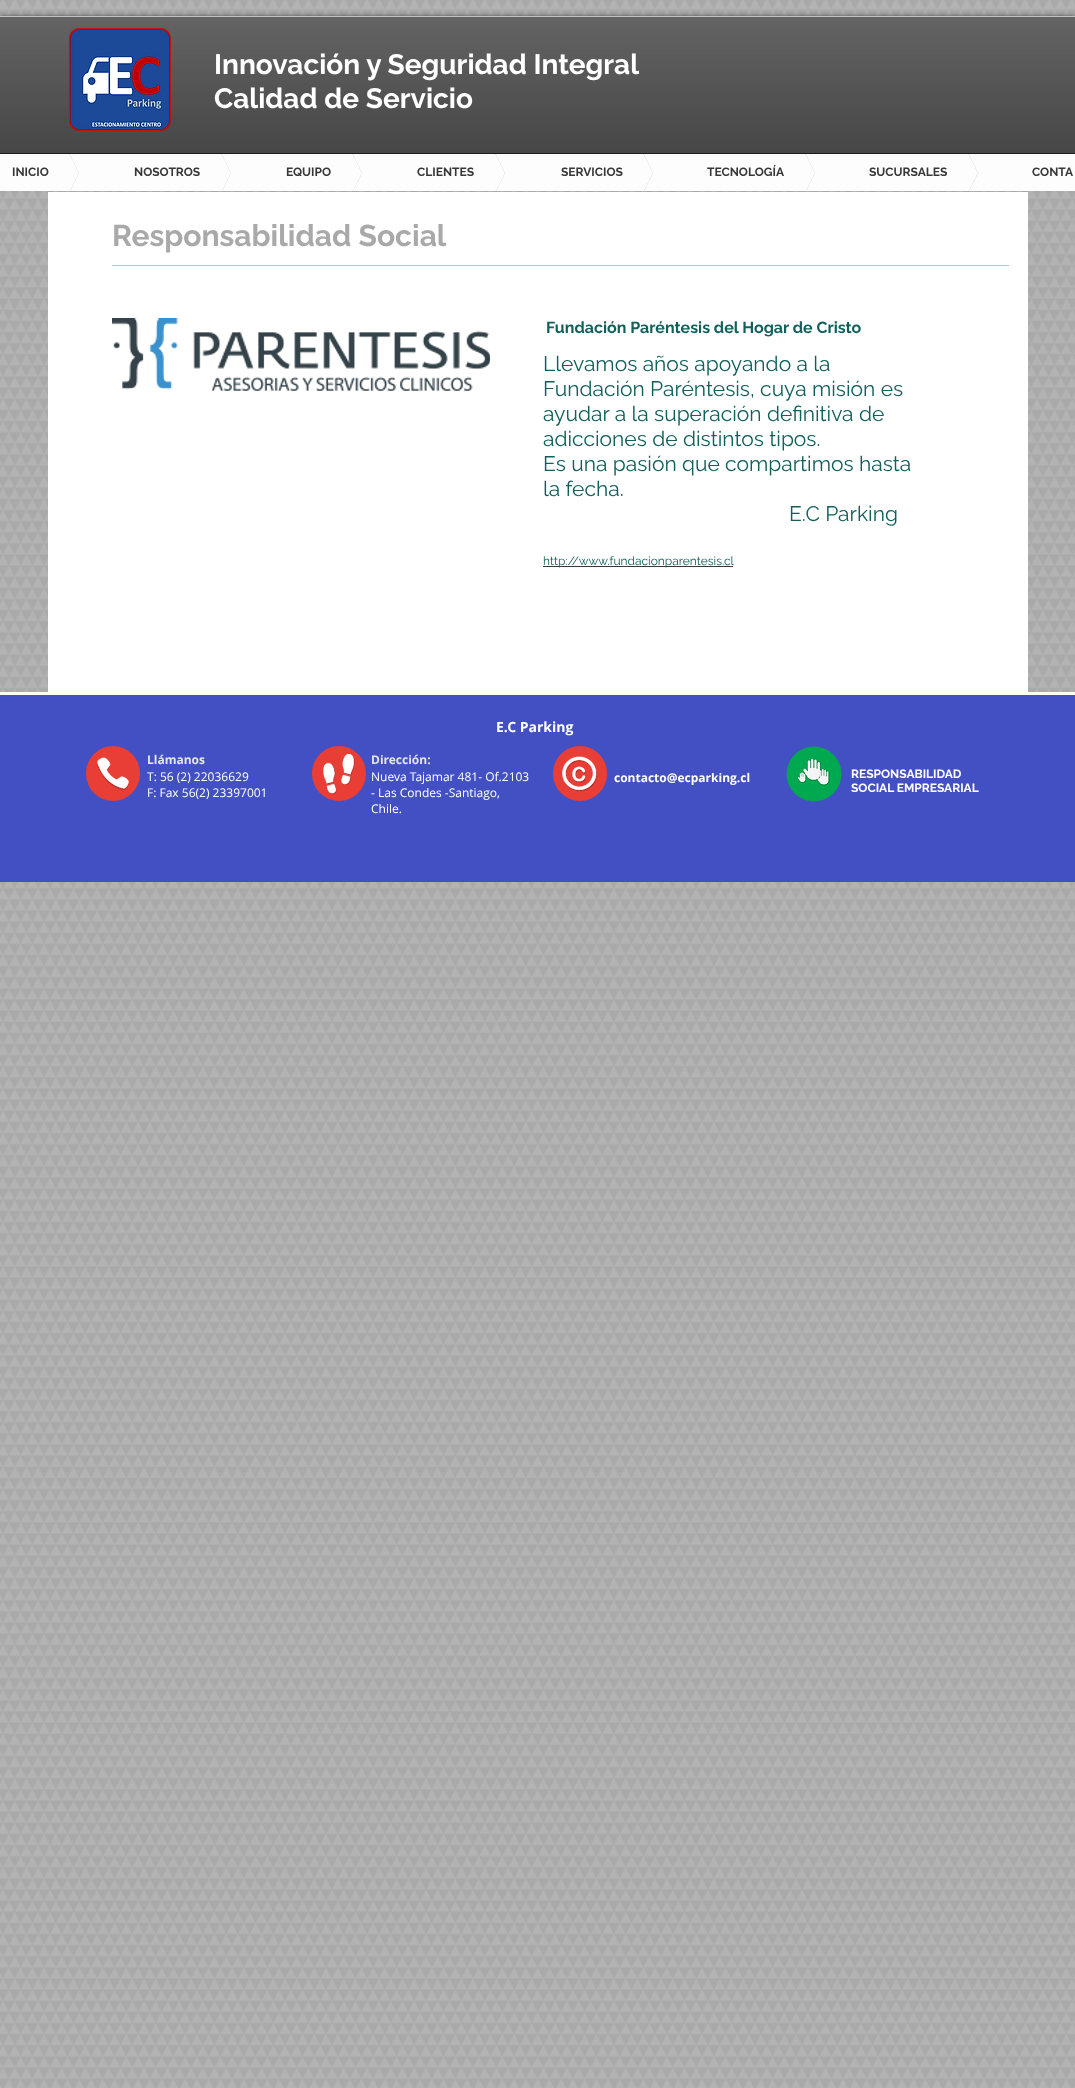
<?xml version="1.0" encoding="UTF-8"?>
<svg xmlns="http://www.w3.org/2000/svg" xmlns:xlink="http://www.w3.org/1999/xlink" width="1075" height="2088">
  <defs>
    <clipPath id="clip1"><rect x="9" y="154" width="70" height="37" /></clipPath>
    <clipPath id="clip2"><rect x="161" y="154" width="70" height="37" /></clipPath>
    <clipPath id="clip3"><rect x="292" y="154" width="70" height="37" /></clipPath>
    <clipPath id="clip4"><rect x="435" y="154" width="70" height="37" /></clipPath>
    <clipPath id="clip5"><rect x="583" y="154" width="70" height="37" /></clipPath>
    <clipPath id="clip6"><rect x="745" y="154" width="70" height="37" /></clipPath>
    <clipPath id="clip7"><rect x="908" y="154" width="70" height="37" /></clipPath>
  </defs>
  <rect width="100%" height="100%" fill="#a9a9a9" />
  <image x="0" y="0" width="1075" height="2088" xlink:href="image1.png" />
  <rect y="16" width="1075" height="138" fill="#000000" fill-opacity="0.6" filter="blur(2.5px)" />
  <rect y="17" width="1075" height="136" fill="#2f2e2e" />
  <image x="0" y="17" width="1075" height="136" xlink:href="image2.png" />
  <rect y="153" width="1075" height="1" fill="#1d1c1c" />
  <rect y="16" width="1075" height="1" fill="#c1c1c1" />
  <image x="69" y="28" width="102" height="103" xlink:href="image3.png" />
  <rect y="154" width="9" height="37" fill="#fefdfd" />
  <g clip-path="url(#clip1)">
    <path d="M 79 173 h -70 v -140 z" fill="#fefdfd" />
    <path d="M 9 173 h 70 l -70 140 z" fill="#fefdfd" />
    <path d="M 9 33 h 70 v 140 z m 70 280 h -70 l 70 -140 z" fill="#fefdfd" />
  </g>
  <rect x="79" y="154" width="82" height="37" fill="#fefdfd" />
  <g clip-path="url(#clip2)">
    <path d="M 231 173 h -70 v -140 z" fill="#fefdfd" />
    <path d="M 161 173 h 70 l -70 140 z" fill="#fefdfd" />
    <path d="M 161 33 h 70 v 140 z m 70 280 h -70 l 70 -140 z" fill="#fefdfd" />
  </g>
  <rect x="231" y="154" width="61" height="37" fill="#fefdfd" />
  <g clip-path="url(#clip3)">
    <path d="M 362 173 h -70 v -140 z" fill="#fefdfd" />
    <path d="M 292 173 h 70 l -70 140 z" fill="#fefdfd" />
    <path d="M 292 33 h 70 v 140 z m 70 280 h -70 l 70 -140 z" fill="#fefdfd" />
  </g>
  <rect x="362" y="154" width="73" height="37" fill="#fefdfd" />
  <g clip-path="url(#clip4)">
    <path d="M 505 173 h -70 v -140 z" fill="#fefdfd" />
    <path d="M 435 173 h 70 l -70 140 z" fill="#fefdfd" />
    <path d="M 435 33 h 70 v 140 z m 70 280 h -70 l 70 -140 z" fill="#fefdfd" />
  </g>
  <rect x="505" y="154" width="78" height="37" fill="#fefdfd" />
  <g clip-path="url(#clip5)">
    <path d="M 653 173 h -70 v -140 z" fill="#fefdfd" />
    <path d="M 583 173 h 70 l -70 140 z" fill="#fefdfd" />
    <path d="M 583 33 h 70 v 140 z m 70 280 h -70 l 70 -140 z" fill="#fefdfd" />
  </g>
  <rect x="653" y="154" width="92" height="37" fill="#fefdfd" />
  <g clip-path="url(#clip6)">
    <path d="M 815 173 h -70 v -140 z" fill="#fefdfd" />
    <path d="M 745 173 h 70 l -70 140 z" fill="#fefdfd" />
    <path d="M 745 33 h 70 v 140 z m 70 280 h -70 l 70 -140 z" fill="#fefdfd" />
  </g>
  <rect x="815" y="154" width="93" height="37" fill="#fefdfd" />
  <g clip-path="url(#clip7)">
    <path d="M 978 173 h -70 v -140 z" fill="#fefdfd" />
    <path d="M 908 173 h 70 l -70 140 z" fill="#fefdfd" />
    <path d="M 908 33 h 70 v 140 z m 70 280 h -70 l 70 -140 z" fill="#fefdfd" />
  </g>
  <rect x="978" y="154" width="97" height="37" fill="#fefdfd" />
  <rect x="48" y="192" width="980" height="500" fill="#ffffff" />
  <rect x="112" y="265" width="897" height="1" fill="#edb888" />
  <image x="112" y="318" width="378" height="73" xlink:href="image4.png" />
  <rect x="543" y="566" width="190" height="1" fill="#383838" />
  <rect y="695" width="1075" height="187" fill="#4350c4" />
  <rect y="692" width="1075" height="3" fill="#fefdfd" />
  <rect x="86" y="746" width="54" height="55" rx="27" fill="#e83e35" />
  <image x="97" y="757" width="32" height="34" xlink:href="image5.png" />
  <rect x="312" y="746" width="54" height="55" rx="27" fill="#e83e35" />
  <image x="323" y="754" width="32" height="40" xlink:href="image6.png" />
  <rect x="553" y="746" width="54" height="55" rx="27" fill="#e83e35" />
  <image x="562" y="756" width="35" height="36" xlink:href="image7.png" />
  <image x="786" y="746" width="56" height="56" xlink:href="image8.png" />
  <text x="214" y="74" style="font-family: Raleway; font-size: 28px; font-weight: bold; fill: #ffffff">Innovación y Seguridad Integral</text>
  <text x="214" y="108" style="font-family: Raleway; font-size: 28px; font-weight: bold; fill: #ffffff">Calidad de Servicio</text>
  <text x="12" y="176" style="font-family: Raleway; font-size: 12px; font-weight: bold; fill: #383838">INICIO</text>
  <text x="134" y="176" style="font-family: Raleway; font-size: 12px; font-weight: bold; fill: #383838">NOSOTROS</text>
  <text x="286" y="176" style="font-family: Raleway; font-size: 12px; font-weight: bold; fill: #383838">EQUIPO</text>
  <text x="417" y="176" style="font-family: Raleway; font-size: 12px; font-weight: bold; fill: #383838">CLIENTES</text>
  <text x="561" y="176" style="font-family: Raleway; font-size: 12px; font-weight: bold; fill: #383838">SERVICIOS</text>
  <text x="707" y="176" style="font-family: Raleway; font-size: 12px; font-weight: bold; fill: #383838">TECNOLOGÍA</text>
  <text x="869" y="176" style="font-family: Raleway; font-size: 12px; font-weight: bold; fill: #383838">SUCURSALES</text>
  <text x="1032" y="176" style="font-family: Raleway; font-size: 12px; font-weight: bold; fill: #383838">CONTA</text>
  <text x="112" y="246" style="font-family: Raleway; font-size: 30px; font-weight: bold; fill: #a9a9a9">Responsabilidad Social</text>
  <text x="546" y="333" style="font-family: Raleway; font-size: 16px; font-weight: bold; fill: #11605c">Fundación Paréntesis del Hogar de Cristo</text>
  <text x="543" y="371" style="font-family: Raleway; font-size: 21px; fill: #11605c">Llevamos años apoyando a la</text>
  <text x="543" y="396" style="font-family: Raleway; font-size: 21px; fill: #11605c">Fundación Paréntesis, cuya misión es</text>
  <text x="543" y="421" style="font-family: Raleway; font-size: 21px; fill: #11605c">ayudar a la superación definitiva de</text>
  <text x="543" y="446" style="font-family: Raleway; font-size: 21px; fill: #11605c">adicciones de distintos tipos.</text>
  <text x="543" y="471" style="font-family: Raleway; font-size: 21px; fill: #11605c">Es una pasión que compartimos hasta</text>
  <text x="543" y="496" style="font-family: Raleway; font-size: 21px; fill: #11605c">la fecha.</text>
  <text x="789" y="521" style="font-family: Raleway; font-size: 21px; fill: #11605c">E.C Parking</text>
  <text x="543" y="565" style="font-family: Raleway; font-size: 12px; fill: #11605c">http://www.fundacionparentesis.cl</text>
  <text x="496" y="732" style="font-family: Open Sans; font-size: 14px; font-weight: bold; fill: #ffffff">E.C Parking</text>
  <text x="147" y="764" style="font-family: Open Sans; font-size: 12px; font-weight: bold; fill: #e5e5e5">Llámanos</text>
  <text x="147" y="781" style="font-family: Open Sans; font-size: 12px; fill: #ffffff">T: 56 (2) 22036629</text>
  <text x="147" y="797" style="font-family: Open Sans; font-size: 12px; fill: #ffffff">F: Fax 56(2) 23397001</text>
  <text x="371" y="764" style="font-family: Open Sans; font-size: 12px; font-weight: bold; fill: #e5e5e5">Dirección:</text>
  <text x="371" y="781" style="font-family: Open Sans; font-size: 12px; fill: #ffffff">Nueva Tajamar 481- Of.2103</text>
  <text x="371" y="797" style="font-family: Open Sans; font-size: 12px; fill: #ffffff">- Las Condes -Santiago,</text>
  <text x="371" y="813" style="font-family: Open Sans; font-size: 12px; fill: #ffffff">Chile.</text>
  <text x="614" y="782" style="font-family: Open Sans; font-size: 12px; font-weight: bold; fill: #ffffff">contacto@ecparking.cl</text>
  <text x="851" y="778" style="font-family: Raleway; font-size: 12px; font-weight: bold; fill: #ffffff">RESPONSABILIDAD</text>
  <text x="851" y="792" style="font-family: Raleway; font-size: 12px; font-weight: bold; fill: #ffffff">SOCIAL EMPRESARIAL</text>
</svg>
